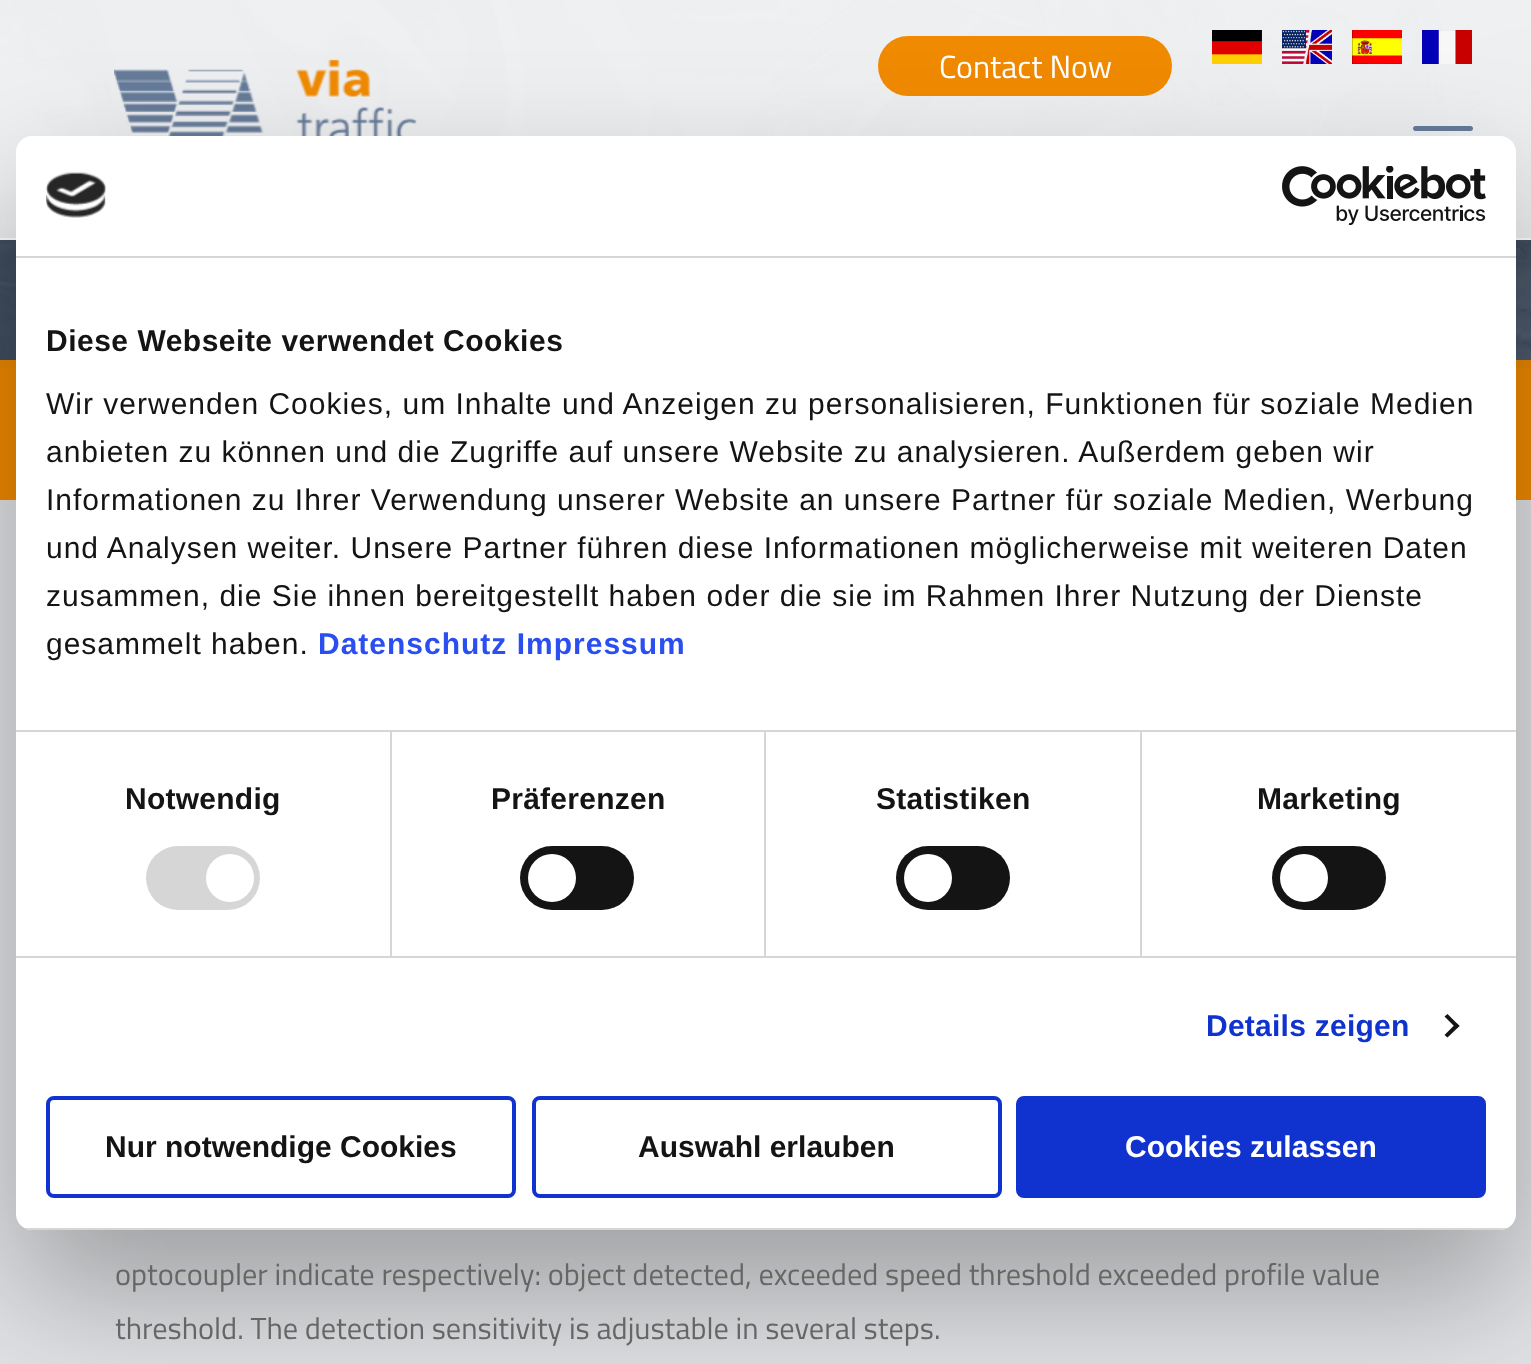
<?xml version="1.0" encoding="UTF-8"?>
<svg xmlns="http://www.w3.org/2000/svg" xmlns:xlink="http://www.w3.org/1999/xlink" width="1531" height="1364">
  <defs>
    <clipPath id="clip1"><rect x="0" y="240" width="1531" height="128" /></clipPath>
    <clipPath id="clip2"><rect x="16" y="136" width="1500" height="1094" rx="16" /></clipPath>
  </defs>
  <rect width="100%" height="100%" fill="#e1e3e6" />
  <image x="0" y="0" width="1531" height="360" xlink:href="image1.png" />
  <rect y="360" width="1531" height="140" fill="#f08a00" />
  <g clip-path="url(#clip1)">
    <rect x="58" y="58" width="1456" height="164" fill="#000000" fill-opacity="0.75" filter="blur(91px)" />
  </g>
  <rect width="1531" height="238" fill="#ffffff" fill-opacity="0.9" />
  <rect y="238" width="1531" height="2" fill="#ffffff" />
  <image x="114" y="58" width="303" height="78" xlink:href="image2.png" />
  <image x="1212" y="30" width="50" height="34" xlink:href="image3.png" />
  <image x="1282" y="30" width="50" height="34" xlink:href="image4.png" />
  <image x="1352" y="30" width="50" height="34" xlink:href="image5.png" />
  <image x="1422" y="30" width="50" height="34" xlink:href="image6.png" />
  <rect x="878" y="36" width="294" height="60" rx="30" fill="#f08a00" />
  <image x="1413" y="126" width="60" height="5" xlink:href="image7.png" />
  <rect x="16" y="200" width="1500" height="1094" rx="16" fill="#000000" fill-opacity="0.3" filter="blur(68px)" />
  <rect x="16" y="136" width="1500" height="1094" rx="16" fill="#ffffff" />
  <rect x="16" y="256" width="1500" height="2" fill="#d6d6d6" />
  <image x="46" y="172" width="60" height="46" xlink:href="image8.png" />
  <image x="1282" y="166" width="204" height="60" xlink:href="image9.png" />
  <rect x="16" y="730" width="1500" height="2" fill="#d6d6d6" />
  <rect x="16" y="956" width="1500" height="2" fill="#d6d6d6" />
  <rect x="390" y="732" width="2" height="224" fill="#d6d6d6" />
  <rect x="146" y="846" width="114" height="64" rx="32" fill="#d6d6d6" />
  <circle cx="230" cy="878" r="24" fill="#ffffff" />
  <rect x="764" y="732" width="2" height="224" fill="#d6d6d6" />
  <rect x="520" y="846" width="114" height="64" rx="32" fill="#141414" />
  <circle cx="552" cy="878" r="24" fill="#ffffff" />
  <rect x="1140" y="732" width="2" height="224" fill="#d6d6d6" />
  <rect x="896" y="846" width="114" height="64" rx="32" fill="#141414" />
  <circle cx="928" cy="878" r="24" fill="#ffffff" />
  <rect x="1272" y="846" width="114" height="64" rx="32" fill="#141414" />
  <circle cx="1304" cy="878" r="24" fill="#ffffff" />
  <path d="M 1447.5 1014 l 12 12 l -3 2.5 l -12 -12 z" fill="#141414" />
  <path d="M 1456.5 1023 l 3 3 l -12 11.5 l -3 -2.5 z" fill="#141414" />
  <g clip-path="url(#clip2)">
    <rect x="16" y="1228" width="1500" height="2" fill="#d6d6d6" />
  </g>
  <rect x="48" y="1098" width="466" height="98" rx="6" fill="none" stroke="#1032cf" stroke-width="4" />
  <rect x="534" y="1098" width="466" height="98" rx="6" fill="none" stroke="#1032cf" stroke-width="4" />
  <rect x="1018" y="1098" width="466" height="98" rx="6" fill="#1032cf" stroke="#1032cf" stroke-width="4" />
  <text x="939" y="78" style="font-family: Titillium Web; font-size: 32px; fill: #ffffff">Contact Now</text>
  <text x="115" y="1285" style="font-family: Titillium Web; font-size: 30.4px; fill: #666666">optocoupler indicate respectively: object detected, exceeded speed threshold exceeded profile value</text>
  <text x="115" y="1339" style="font-family: Titillium Web; font-size: 30.4px; fill: #666666">threshold. The detection sensitivity is adjustable in several steps.</text>
  <text x="46" y="351" style="font-family: Liberation Sans; font-size: 30px; font-weight: bold; letter-spacing: 0.5px; fill: #141414">Diese Webseite verwendet Cookies</text>
  <text x="46" y="414" style="font-family: Liberation Sans; font-size: 30px; letter-spacing: 1px; fill: #141414">Wir verwenden Cookies, um Inhalte und Anzeigen zu personalisieren, Funktionen für soziale Medien</text>
  <text x="46" y="462" style="font-family: Liberation Sans; font-size: 30px; letter-spacing: 1px; fill: #141414">anbieten zu können und die Zugriffe auf unsere Website zu analysieren. Außerdem geben wir</text>
  <text x="46" y="510" style="font-family: Liberation Sans; font-size: 30px; letter-spacing: 1px; fill: #141414">Informationen zu Ihrer Verwendung unserer Website an unsere Partner für soziale Medien, Werbung</text>
  <text x="46" y="558" style="font-family: Liberation Sans; font-size: 30px; letter-spacing: 1px; fill: #141414">und Analysen weiter. Unsere Partner führen diese Informationen möglicherweise mit weiteren Daten</text>
  <text x="46" y="606" style="font-family: Liberation Sans; font-size: 30px; letter-spacing: 1px; fill: #141414">zusammen, die Sie ihnen bereitgestellt haben oder die sie im Rahmen Ihrer Nutzung der Dienste</text>
  <text x="46" y="654" style="font-family: Liberation Sans; font-size: 30px; letter-spacing: 1px; fill: #141414">gesammelt haben.</text>
  <text x="318" y="654" style="font-family: Liberation Sans; font-size: 30px; font-weight: bold; letter-spacing: 1px; fill: #2a4eef">Datenschutz Impressum</text>
  <text x="125" y="809" style="font-family: Liberation Sans; font-size: 30px; font-weight: bold; letter-spacing: 0.25px; fill: #141414">Notwendig</text>
  <text x="491" y="809" style="font-family: Liberation Sans; font-size: 30px; font-weight: bold; letter-spacing: 0.25px; fill: #141414">Präferenzen</text>
  <text x="876" y="809" style="font-family: Liberation Sans; font-size: 30px; font-weight: bold; letter-spacing: 0.25px; fill: #141414">Statistiken</text>
  <text x="1257" y="809" style="font-family: Liberation Sans; font-size: 30px; font-weight: bold; letter-spacing: 0.25px; fill: #141414">Marketing</text>
  <text x="1206" y="1036" style="font-family: Liberation Sans; font-size: 30px; font-weight: bold; letter-spacing: 0.25px; fill: #1032cf">Details zeigen</text>
  <text x="105" y="1157" style="font-family: Liberation Sans; font-size: 30px; font-weight: bold; fill: #141414">Nur notwendige Cookies</text>
  <text x="638" y="1157" style="font-family: Liberation Sans; font-size: 30px; font-weight: bold; fill: #141414">Auswahl erlauben</text>
  <text x="1125" y="1157" style="font-family: Liberation Sans; font-size: 30px; font-weight: bold; fill: #ffffff">Cookies zulassen</text>
</svg>
